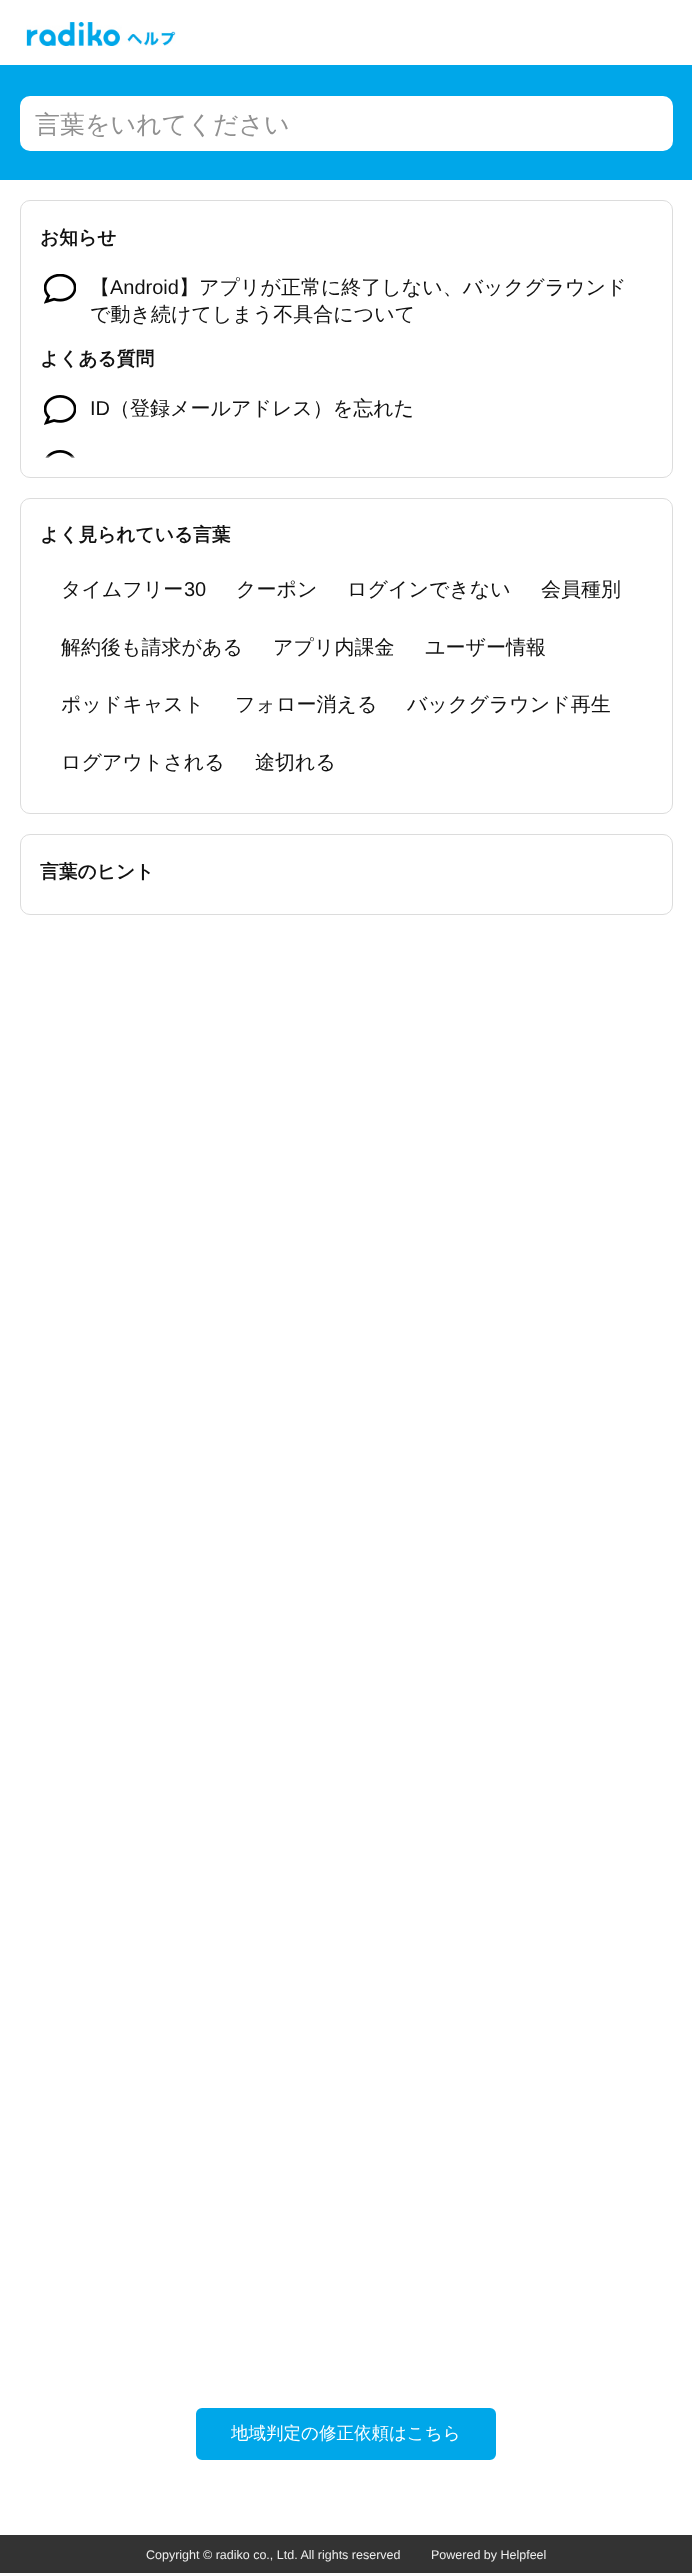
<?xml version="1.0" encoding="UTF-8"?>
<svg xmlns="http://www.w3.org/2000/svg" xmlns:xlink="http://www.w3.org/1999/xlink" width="692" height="2573">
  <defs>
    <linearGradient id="g1" gradientUnits="userSpaceOnUse" x1="346" y1="459" x2="346" y2="455"><stop offset="0" stop-color="#ffffff" /><stop offset="1" stop-color="#ffffff" stop-opacity="0" /></linearGradient>
  </defs>
  <rect width="100%" height="100%" fill="#ffffff" />
  <rect y="65" width="692" height="115" fill="#00a7e9" />
  <image x="26" y="22" width="150" height="24" xlink:href="image1.png" />
  <rect x="20" y="96" width="653" height="55" rx="10" fill="#ffffff" />
  <rect x="20.5" y="200.5" width="652" height="277" rx="9.5" fill="none" stroke="#dcdcdc" />
  <image x="44" y="274" width="32" height="30" xlink:href="image2.png" />
  <image x="44" y="395" width="32" height="30" xlink:href="image3.png" />
  <image x="45" y="450" width="30" height="8" xlink:href="image4.png" />
  <rect x="40" y="455" width="35" height="3" fill="url(#g1)" />
  <rect x="20.5" y="498.5" width="652" height="315" rx="9.5" fill="none" stroke="#dcdcdc" />
  <rect x="20.5" y="834.5" width="652" height="80" rx="9.5" fill="none" stroke="#dcdcdc" />
  <rect x="197.5" y="2409.5" width="297" height="49" rx="4.5" fill="#00a7e9" stroke="#00a7e9" stroke-width="3" />
  <rect y="2535" width="692" height="38" fill="#333333" />
  <text x="35" y="133" style="font-family: WenQuanYi Zen Hei; font-size: 25px; font-weight: 500; fill: #919191">言葉をいれてください</text>
  <text x="40" y="244" style="font-family: WenQuanYi Zen Hei; font-size: 18.75px; font-weight: bold; fill: #111111">お知らせ</text>
  <text x="90" y="294" style="font-family: WenQuanYi Zen Hei; font-size: 20px; font-weight: 500; fill: #111111">【</text>
  <text x="110" y="294" style="font-family: Liberation Sans; font-size: 20px; fill: #111111">Android</text>
  <text x="179" y="294" style="font-family: WenQuanYi Zen Hei; font-size: 20px; font-weight: 500; fill: #111111">】アプリが正常に終了しない、バックグラウンド</text>
  <text x="90" y="321" style="font-family: WenQuanYi Zen Hei; font-size: 20px; font-weight: 500; fill: #111111">で動き続けてしまう不具合について</text>
  <text x="40" y="365" style="font-family: WenQuanYi Zen Hei; font-size: 18.75px; font-weight: bold; fill: #111111">よくある質問</text>
  <text x="90" y="415" style="font-family: Liberation Sans; font-size: 20px; fill: #111111">ID</text>
  <text x="110" y="415" style="font-family: WenQuanYi Zen Hei; font-size: 20px; font-weight: 500; fill: #111111">（登録メールアドレス）を忘れた</text>
  <text x="40" y="541" style="font-family: WenQuanYi Zen Hei; font-size: 18.75px; font-weight: bold; fill: #111111">よく見られている言葉</text>
  <text x="61" y="596" style="font-family: WenQuanYi Zen Hei; font-size: 20px; font-weight: 500; fill: #111111">タイムフリー</text>
  <text x="184" y="596" style="font-family: Liberation Sans; font-size: 20px; fill: #111111">30</text>
  <text x="236" y="596" style="font-family: WenQuanYi Zen Hei; font-size: 20px; font-weight: 500; fill: #111111">クーポン</text>
  <text x="347" y="596" style="font-family: WenQuanYi Zen Hei; font-size: 20px; font-weight: 500; fill: #111111">ログインできない</text>
  <text x="541" y="596" style="font-family: WenQuanYi Zen Hei; font-size: 20px; font-weight: 500; fill: #111111">会員種別</text>
  <text x="61" y="654" style="font-family: WenQuanYi Zen Hei; font-size: 20px; font-weight: 500; fill: #111111">解約後も請求がある</text>
  <text x="273" y="654" style="font-family: WenQuanYi Zen Hei; font-size: 20px; font-weight: 500; fill: #111111">アプリ内課金</text>
  <text x="425" y="654" style="font-family: WenQuanYi Zen Hei; font-size: 20px; font-weight: 500; fill: #111111">ユーザー情報</text>
  <text x="61" y="711" style="font-family: WenQuanYi Zen Hei; font-size: 20px; font-weight: 500; fill: #111111">ポッドキャスト</text>
  <text x="235" y="711" style="font-family: WenQuanYi Zen Hei; font-size: 20px; font-weight: 500; fill: #111111">フォロー消える</text>
  <text x="407" y="711" style="font-family: WenQuanYi Zen Hei; font-size: 20px; font-weight: 500; fill: #111111">バックグラウンド再生</text>
  <text x="61" y="769" style="font-family: WenQuanYi Zen Hei; font-size: 20px; font-weight: 500; fill: #111111">ログアウトされる</text>
  <text x="255" y="769" style="font-family: WenQuanYi Zen Hei; font-size: 20px; font-weight: 500; fill: #111111">途切れる</text>
  <text x="40" y="878" style="font-family: WenQuanYi Zen Hei; font-size: 18.75px; font-weight: bold; fill: #111111">言葉のヒント</text>
  <text x="231" y="2439" style="font-family: WenQuanYi Zen Hei; font-size: 17.5px; font-weight: 500; fill: #ffffff">地域判定の修正依頼はこちら</text>
  <text x="146" y="2559" style="font-family: Liberation Sans; font-size: 12.5px; fill: #eeeeee">Copyright © radiko co., Ltd. All rights reserved</text>
  <text x="431" y="2559" style="font-family: Liberation Sans; font-size: 12.5px; fill: #eeeeee">Powered by Helpfeel</text>
</svg>
